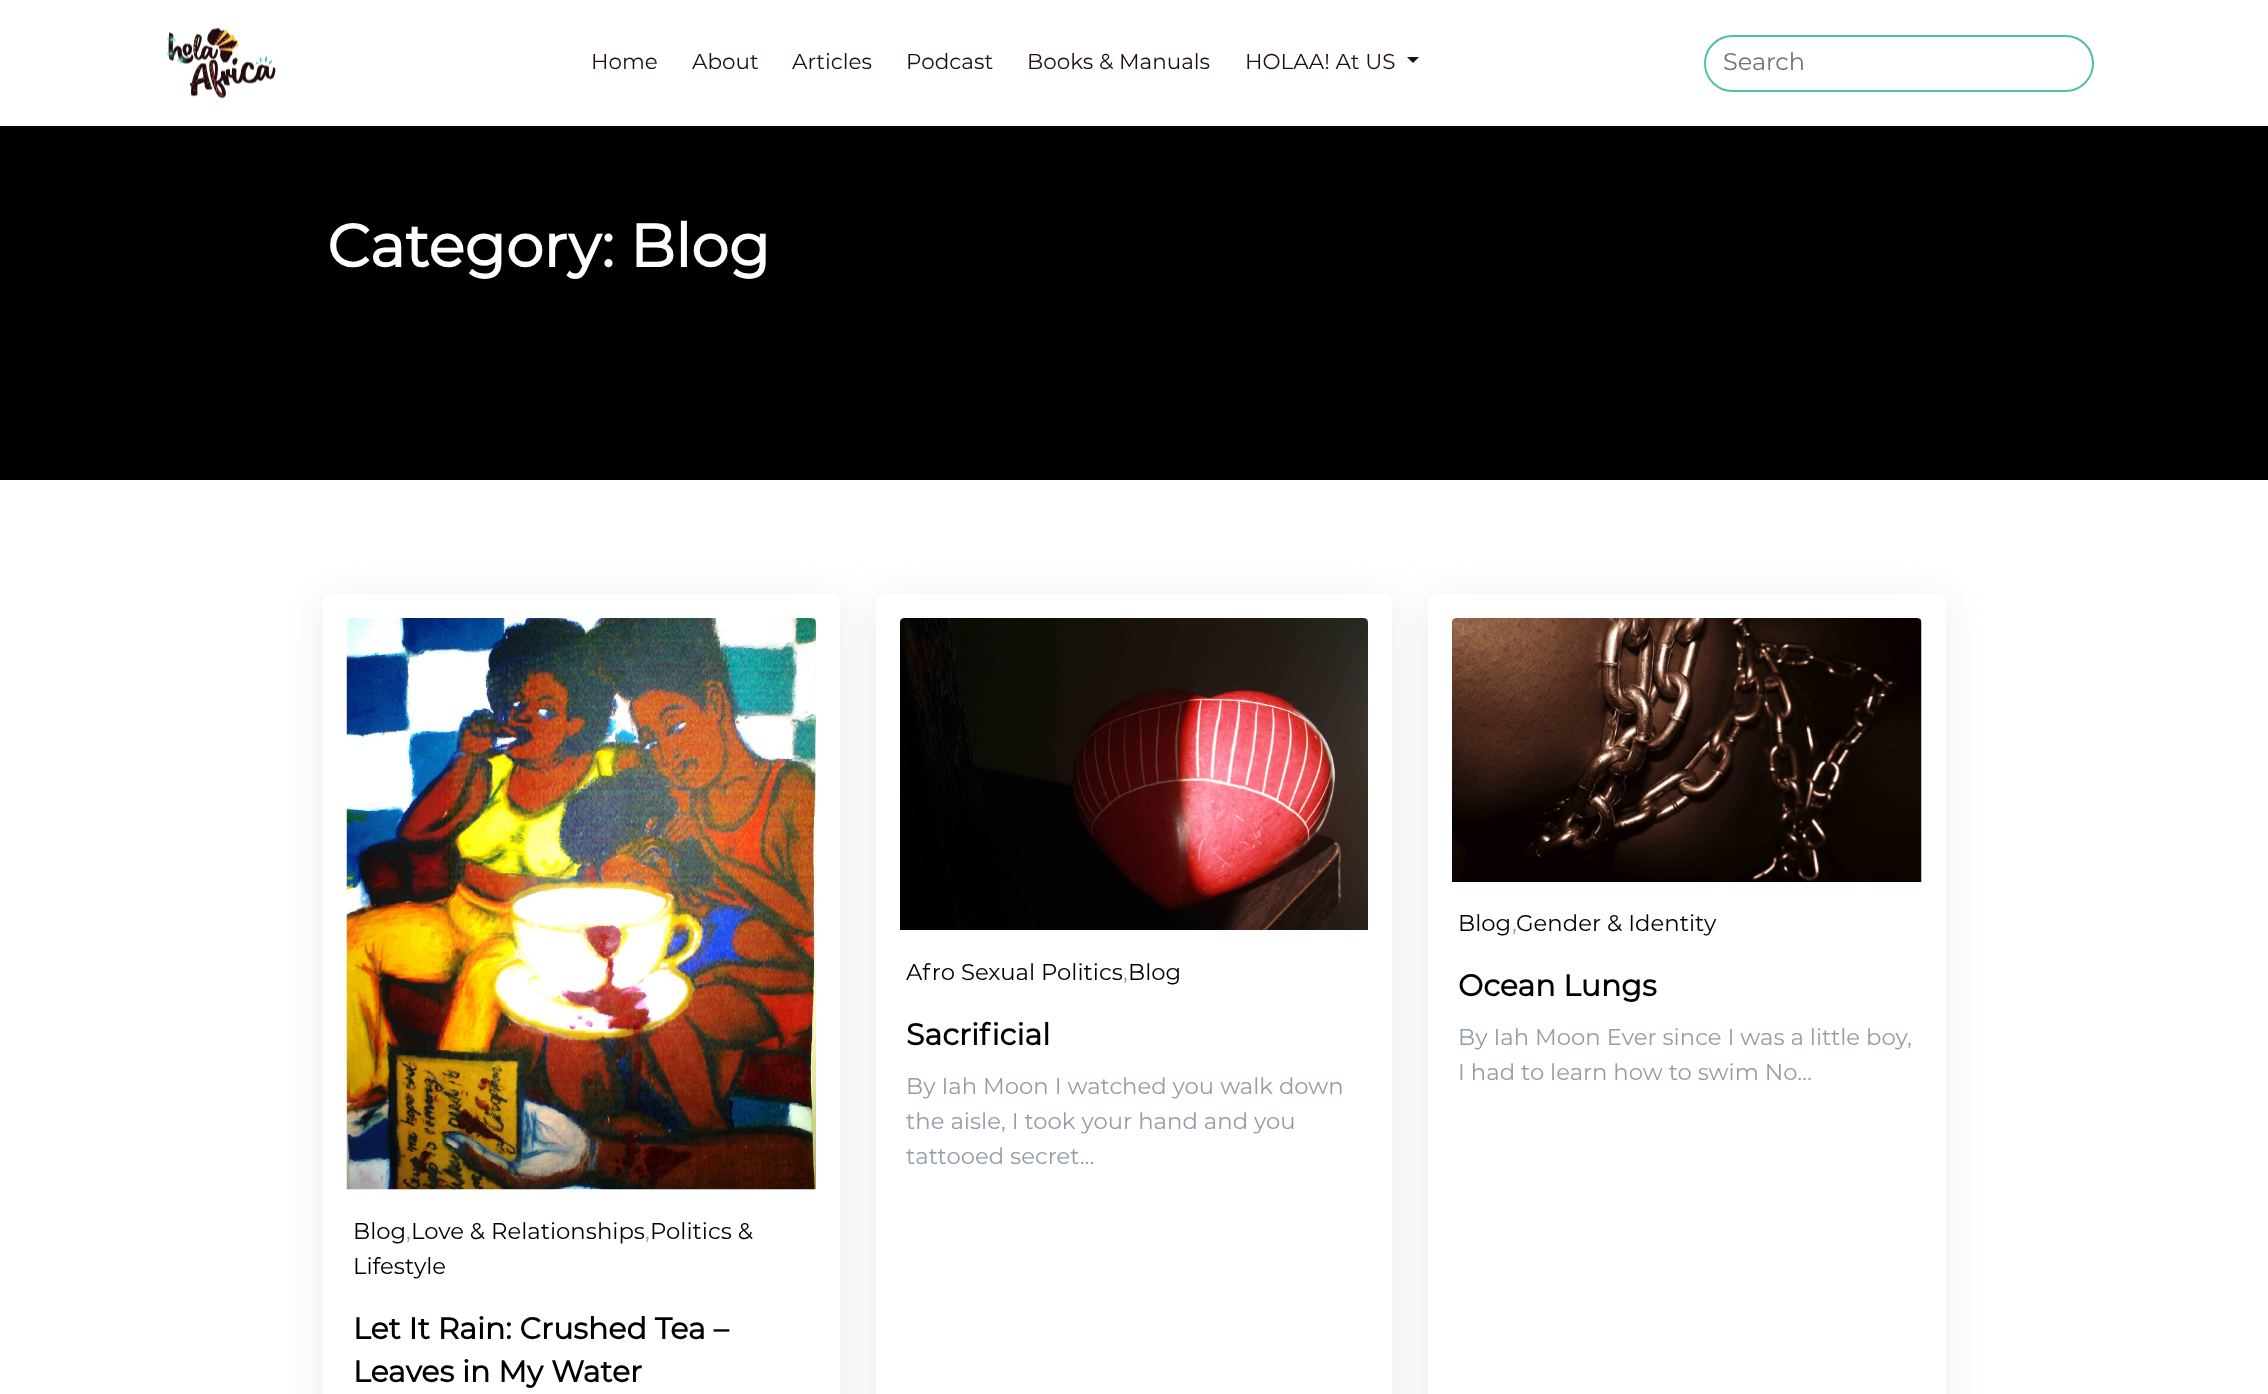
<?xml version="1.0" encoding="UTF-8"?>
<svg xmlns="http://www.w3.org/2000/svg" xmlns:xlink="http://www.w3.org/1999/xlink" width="2268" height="1394">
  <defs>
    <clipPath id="clip1"><path d="M 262 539 h 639 v 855 h -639 z m 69 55 h 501 c 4.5 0 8 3.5 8 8 v 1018 c 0 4.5 -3.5 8 -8 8 h -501 c -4.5 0 -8 -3.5 -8 -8 v -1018 c 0 -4.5 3.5 -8 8 -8 z" clip-rule="evenodd" /></clipPath>
    <clipPath id="clip2"><path d="M 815 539 h 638 v 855 h -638 z m 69 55 h 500 c 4.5 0 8 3.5 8 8 v 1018 c 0 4.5 -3.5 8 -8 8 h -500 c -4.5 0 -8 -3.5 -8 -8 v -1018 c 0 -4.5 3.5 -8 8 -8 z" clip-rule="evenodd" /></clipPath>
  </defs>
  <rect width="100%" height="100%" fill="#ffffff" />
  <image x="166" y="27" width="110" height="72" xlink:href="image1.png" />
  <path d="M 1407 57 h 12 l -6 6 z" fill="#210f0f" />
  <rect x="1705" y="36" width="388" height="55" rx="27.5" fill="none" stroke="#4fbfa5" stroke-width="2" />
  <rect y="126" width="2268" height="354" fill="#000000" />
  <g clip-path="url(#clip1)">
    <rect x="323" y="600" width="517" height="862" rx="8" fill="#b6bece" fill-opacity="0.3" filter="blur(20px)" />
  </g>
  <image x="346" y="618" width="470" height="572" xlink:href="image4.png" />
  <g clip-path="url(#clip2)">
    <rect x="876" y="600" width="516" height="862" rx="8" fill="#b6bece" fill-opacity="0.3" filter="blur(20px)" />
  </g>
  <image x="900" y="618" width="468" height="312" xlink:href="image2.png" />
  <rect x="1428" y="600" width="518" height="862" rx="8" fill="#b6bece" fill-opacity="0.3" filter="blur(20px)" />
  <rect x="1428" y="594" width="518" height="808" rx="8" fill="#ffffff" />
  <image x="1452" y="618" width="470" height="264" xlink:href="image3.png" />
  <text x="591" y="69" style="font-family: Montserrat; font-size: 21.5px; fill: #210f0f">Home</text>
  <text x="692" y="69" style="font-family: Montserrat; font-size: 21.5px; fill: #210f0f">About</text>
  <text x="792" y="69" style="font-family: Montserrat; font-size: 21.5px; fill: #210f0f">Articles</text>
  <text x="906" y="69" style="font-family: Montserrat; font-size: 21.5px; fill: #210f0f">Podcast</text>
  <text x="1027" y="69" style="font-family: Montserrat; font-size: 21.5px; fill: #210f0f">Books &amp; Manuals</text>
  <text x="1245" y="69" style="font-family: Montserrat; font-size: 21.5px; fill: #210f0f">HOLAA! At US</text>
  <text x="1723" y="70" style="font-family: Montserrat; font-size: 24px; fill: #6c757d">Search</text>
  <text x="327" y="267" style="font-family: Montserrat; font-size: 60px; font-weight: bold; fill: #ffffff">Category: Blog</text>
  <text x="906" y="980" style="font-family: Montserrat; font-size: 22.75px; fill: #000000">Afro Sexual Politics</text>
  <text x="1123" y="980" style="font-family: Montserrat; font-size: 22.75px; fill: #939daa">,</text>
  <text x="1128" y="980" style="font-family: Montserrat; font-size: 22.75px; fill: #000000">Blog</text>
  <text x="906" y="1045" style="font-family: Montserrat; font-size: 30px; font-weight: bold; fill: #000000">Sacrificial</text>
  <text x="906" y="1094" style="font-family: Montserrat; font-size: 22.75px; fill: #939daa">By Iah Moon I watched you walk down</text>
  <text x="906" y="1129" style="font-family: Montserrat; font-size: 22.75px; fill: #939daa">the aisle, I took your hand and you</text>
  <text x="906" y="1164" style="font-family: Montserrat; font-size: 22.75px; fill: #939daa">tattooed secret…</text>
  <text x="1458" y="931" style="font-family: Montserrat; font-size: 22.75px; fill: #000000">Blog</text>
  <text x="1512" y="931" style="font-family: Montserrat; font-size: 22.75px; fill: #939daa">,</text>
  <text x="1516" y="931" style="font-family: Montserrat; font-size: 22.75px; fill: #000000">Gender &amp; Identity</text>
  <text x="1458" y="996" style="font-family: Montserrat; font-size: 30px; font-weight: bold; fill: #000000">Ocean Lungs</text>
  <text x="1458" y="1045" style="font-family: Montserrat; font-size: 22.75px; fill: #939daa">By Iah Moon Ever since I was a little boy,</text>
  <text x="1458" y="1080" style="font-family: Montserrat; font-size: 22.75px; fill: #939daa">I had to learn how to swim No…</text>
  <text x="353" y="1239" style="font-family: Montserrat; font-size: 22.75px; fill: #000000">Blog</text>
  <text x="406" y="1239" style="font-family: Montserrat; font-size: 22.75px; fill: #939daa">,</text>
  <text x="411" y="1239" style="font-family: Montserrat; font-size: 22.75px; fill: #000000">Love &amp; Relationships</text>
  <text x="645" y="1239" style="font-family: Montserrat; font-size: 22.75px; fill: #939daa">,</text>
  <text x="650" y="1239" style="font-family: Montserrat; font-size: 22.75px; fill: #000000">Politics &amp;</text>
  <text x="353" y="1274" style="font-family: Montserrat; font-size: 22.75px; fill: #000000">Lifestyle</text>
  <text x="353" y="1339" style="font-family: Montserrat; font-size: 30px; font-weight: bold; fill: #000000">Let It Rain: Crushed Tea –</text>
  <text x="353" y="1382" style="font-family: Montserrat; font-size: 30px; font-weight: bold; fill: #000000">Leaves in My Water</text>
</svg>
